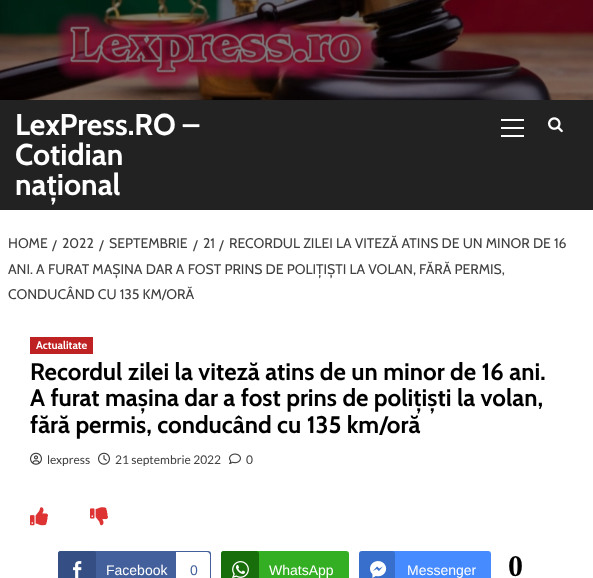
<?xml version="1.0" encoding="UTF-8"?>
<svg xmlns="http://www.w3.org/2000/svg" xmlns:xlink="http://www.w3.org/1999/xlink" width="593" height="578">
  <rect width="100%" height="100%" fill="#ffffff" />
  <image x="0" y="0" width="593" height="100" xlink:href="image1.png" />
  <rect y="100" width="593" height="110" fill="#222222" />
  <rect x="501" y="127" width="23" height="2" fill="#ffffff" />
  <rect x="501" y="119" width="23" height="2" fill="#ffffff" />
  <rect x="501" y="135" width="23" height="2" fill="#ffffff" />
  <image x="548" y="117" width="15" height="16" xlink:href="image2.png" />
  <rect x="30" y="337" width="63" height="17" fill="#be2222" />
  <image x="30" y="452" width="12" height="13" xlink:href="image3.png" />
  <image x="98" y="452" width="12" height="13" xlink:href="image4.png" />
  <image x="229" y="453" width="12" height="11" xlink:href="image5.png" />
  <image x="30" y="507" width="18" height="19" xlink:href="image6.png" />
  <image x="90" y="507" width="18" height="19" xlink:href="image7.png" />
  <rect x="58" y="551" width="153" height="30" rx="3" fill="#43609c" />
  <rect x="58" y="551" width="38" height="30" rx="3" fill="#354e83" />
  <image x="73" y="561" width="9" height="17" xlink:href="image8.png" />
  <path d="M 176 552 h 31 c 1.5 0 3 1.5 3 3 v 23 c 0 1.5 -1.5 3 -3 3 h -31 z" fill="#ffffff" />
  <rect x="221" y="551" width="128" height="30" rx="3" fill="#34af23" />
  <rect x="221" y="551" width="38" height="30" rx="3" fill="#176e0b" />
  <image x="232" y="561" width="17" height="17" xlink:href="image9.png" />
  <rect x="359" y="551" width="132" height="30" rx="3" fill="#468bff" />
  <rect x="359" y="551" width="36" height="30" rx="3" fill="#000000" fill-opacity="0.2" />
  <image x="370" y="561" width="17" height="17" xlink:href="image10.png" />
  <text x="15" y="135" style="font-family: Cabin; font-size: 30px; font-weight: bold; fill: #ffffff">LexPress.RO –</text>
  <text x="15" y="165" style="font-family: Cabin; font-size: 30px; font-weight: bold; fill: #ffffff">Cotidian</text>
  <text x="15" y="195" style="font-family: Cabin; font-size: 30px; font-weight: bold; fill: #ffffff">național</text>
  <text x="219" y="250" style="font-family: Cabin; font-size: 14px; fill: #404040">/</text>
  <text x="229" y="248" style="font-family: Cabin; font-size: 14px; fill: #404040">RECORDUL ZILEI LA VITEZĂ ATINS DE UN MINOR DE 16</text>
  <text x="8" y="274" style="font-family: Cabin; font-size: 14px; fill: #404040">ANI. A FURAT MAȘINA DAR A FOST PRINS DE POLIȚIȘTI LA VOLAN, FĂRĂ PERMIS,</text>
  <text x="8" y="299" style="font-family: Cabin; font-size: 14px; fill: #404040">CONDUCÂND CU 135 KM/ORĂ</text>
  <text x="8" y="248" style="font-family: Cabin; font-size: 14px; fill: #404040">HOME</text>
  <text x="52" y="250" style="font-family: Cabin; font-size: 14px; fill: #404040">/</text>
  <text x="62" y="248" style="font-family: Cabin; font-size: 14px; fill: #404040">2022</text>
  <text x="99" y="250" style="font-family: Cabin; font-size: 14px; fill: #404040">/</text>
  <text x="109" y="248" style="font-family: Cabin; font-size: 14px; fill: #404040">SEPTEMBRIE</text>
  <text x="193" y="250" style="font-family: Cabin; font-size: 14px; fill: #404040">/</text>
  <text x="203" y="248" style="font-family: Cabin; font-size: 14px; fill: #404040">21</text>
  <text x="36" y="349" style="font-family: Cabin; font-size: 11px; font-weight: bold; fill: #ffffff">Actualitate</text>
  <text x="30" y="380" style="font-family: Cabin; font-size: 24px; font-weight: bold; fill: #000000">Recordul zilei la viteză atins de un minor de 16 ani.</text>
  <text x="30" y="406" style="font-family: Cabin; font-size: 24px; font-weight: bold; fill: #000000">A furat mașina dar a fost prins de polițiști la volan,</text>
  <text x="30" y="433" style="font-family: Cabin; font-size: 24px; font-weight: bold; fill: #000000">fără permis, conducând cu 135 km/oră</text>
  <text x="47" y="464" style="font-family: Lato; font-size: 12px; fill: #404040">lexpress</text>
  <text x="115" y="464" style="font-family: Lato; font-size: 12px; fill: #404040">21 septembrie 2022</text>
  <text x="246" y="464" style="font-family: Lato; font-size: 12px; fill: #404040">0</text>
  <text x="106" y="575" style="font-family: Liberation Sans; font-size: 14px; fill: #ffffff">Facebook</text>
  <text x="190" y="575" style="font-family: Liberation Sans; font-size: 14px; fill: #43609c">0</text>
  <text x="269" y="575" style="font-family: Liberation Sans; font-size: 14px; fill: #ffffff">WhatsApp</text>
  <text x="407" y="575" style="font-family: Liberation Sans; font-size: 14px; fill: #ffffff">Messenger</text>
  <text x="508" y="576" style="font-family: Liberation Serif; font-size: 30px; font-weight: bold; fill: #000000">0</text>
</svg>
